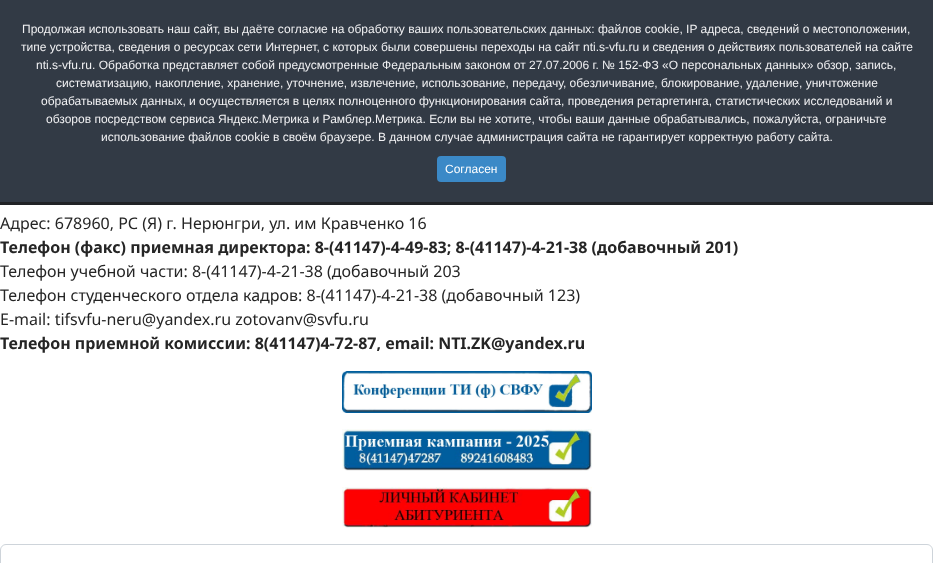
<?xml version="1.0" encoding="UTF-8"?>
<svg xmlns="http://www.w3.org/2000/svg" xmlns:xlink="http://www.w3.org/1999/xlink" width="933" height="563">
  <rect width="100%" height="100%" fill="#ffffff" />
  <rect width="933" height="202" fill="#323a45" />
  <rect y="202" width="933" height="3" fill="#202226" />
  <rect x="437" y="156" width="69" height="26" rx="4" fill="#3b89c7" />
  <image x="342" y="371" width="250" height="42" xlink:href="image1.png" />
  <image x="342" y="429" width="250" height="42" xlink:href="image2.png" />
  <image x="342" y="487" width="250" height="41" xlink:href="image3.png" />
  <rect x="0.5" y="544.5" width="932" height="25" rx="5.5" fill="none" stroke="#ced4da" />
  <text x="22" y="33" style="font-family: Liberation Sans; font-size: 12px; fill: #f1f1f3">Продолжая использовать наш сайт, вы даёте согласие на обработку ваших пользовательских данных: файлов cookie, IP адреса, сведений о местоположении,</text>
  <text x="21" y="51" style="font-family: Liberation Sans; font-size: 12px; fill: #f1f1f3">типе устройства, сведения о ресурсах сети Интернет, с которых были совершены переходы на сайт nti.s-vfu.ru и сведения о действиях пользователей на сайте</text>
  <text x="36" y="69" style="font-family: Liberation Sans; font-size: 12px; fill: #f1f1f3">nti.s-vfu.ru. Обработка представляет собой предусмотренные Федеральным законом от 27.07.2006 г. № 152-ФЗ «О персональных данных» обзор, запись,</text>
  <text x="56" y="87" style="font-family: Liberation Sans; font-size: 12px; fill: #f1f1f3">систематизацию, накопление, хранение, уточнение, извлечение, использование, передачу, обезличивание, блокирование, удаление, уничтожение</text>
  <text x="41" y="105" style="font-family: Liberation Sans; font-size: 12px; fill: #f1f1f3">обрабатываемых данных, и осуществляется в целях полноценного функционирования сайта, проведения ретаргетинга, статистических исследований и</text>
  <text x="46" y="123" style="font-family: Liberation Sans; font-size: 12px; fill: #f1f1f3">обзоров посредством сервиса Яндекс.Метрика и Рамблер.Метрика. Если вы не хотите, чтобы ваши данные обрабатывались, пожалуйста, ограничьте</text>
  <text x="101" y="141" style="font-family: Liberation Sans; font-size: 12px; fill: #f1f1f3">использование файлов cookie в своём браузере. В данном случае администрация сайта не гарантирует корректную работу сайта.</text>
  <text x="445" y="173" style="font-family: Liberation Sans; font-size: 12px; fill: #ffffff">Согласен</text>
  <text x="0" y="229" style="font-family: Noto Sans; font-size: 16px; fill: #252525">Адрес: 678960, РС (Я) г. Нерюнгри, ул. им Кравченко 16</text>
  <text x="0" y="253" style="font-family: Noto Sans; font-size: 16px; font-weight: bold; fill: #252525">Телефон (факс) приемная директора: 8-(41147)-4-49-83; 8-(41147)-4-21-38 (добавочный 201)</text>
  <text x="0" y="277" style="font-family: Noto Sans; font-size: 16px; fill: #252525">Телефон учебной части: 8-(41147)-4-21-38 (добавочный 203</text>
  <text x="0" y="301" style="font-family: Noto Sans; font-size: 16px; fill: #252525">Телефон студенческого отдела кадров: 8-(41147)-4-21-38 (добавочный 123)</text>
  <text x="0" y="325" style="font-family: Noto Sans; font-size: 16px; fill: #252525">E-mail: tifsvfu-neru@yandex.ru zotovanv@svfu.ru</text>
  <text x="0" y="349" style="font-family: Noto Sans; font-size: 16px; font-weight: bold; fill: #252525">Телефон приемной комиссии: 8(41147)4-72-87, email: NTI.ZK@yandex.ru</text>
</svg>
